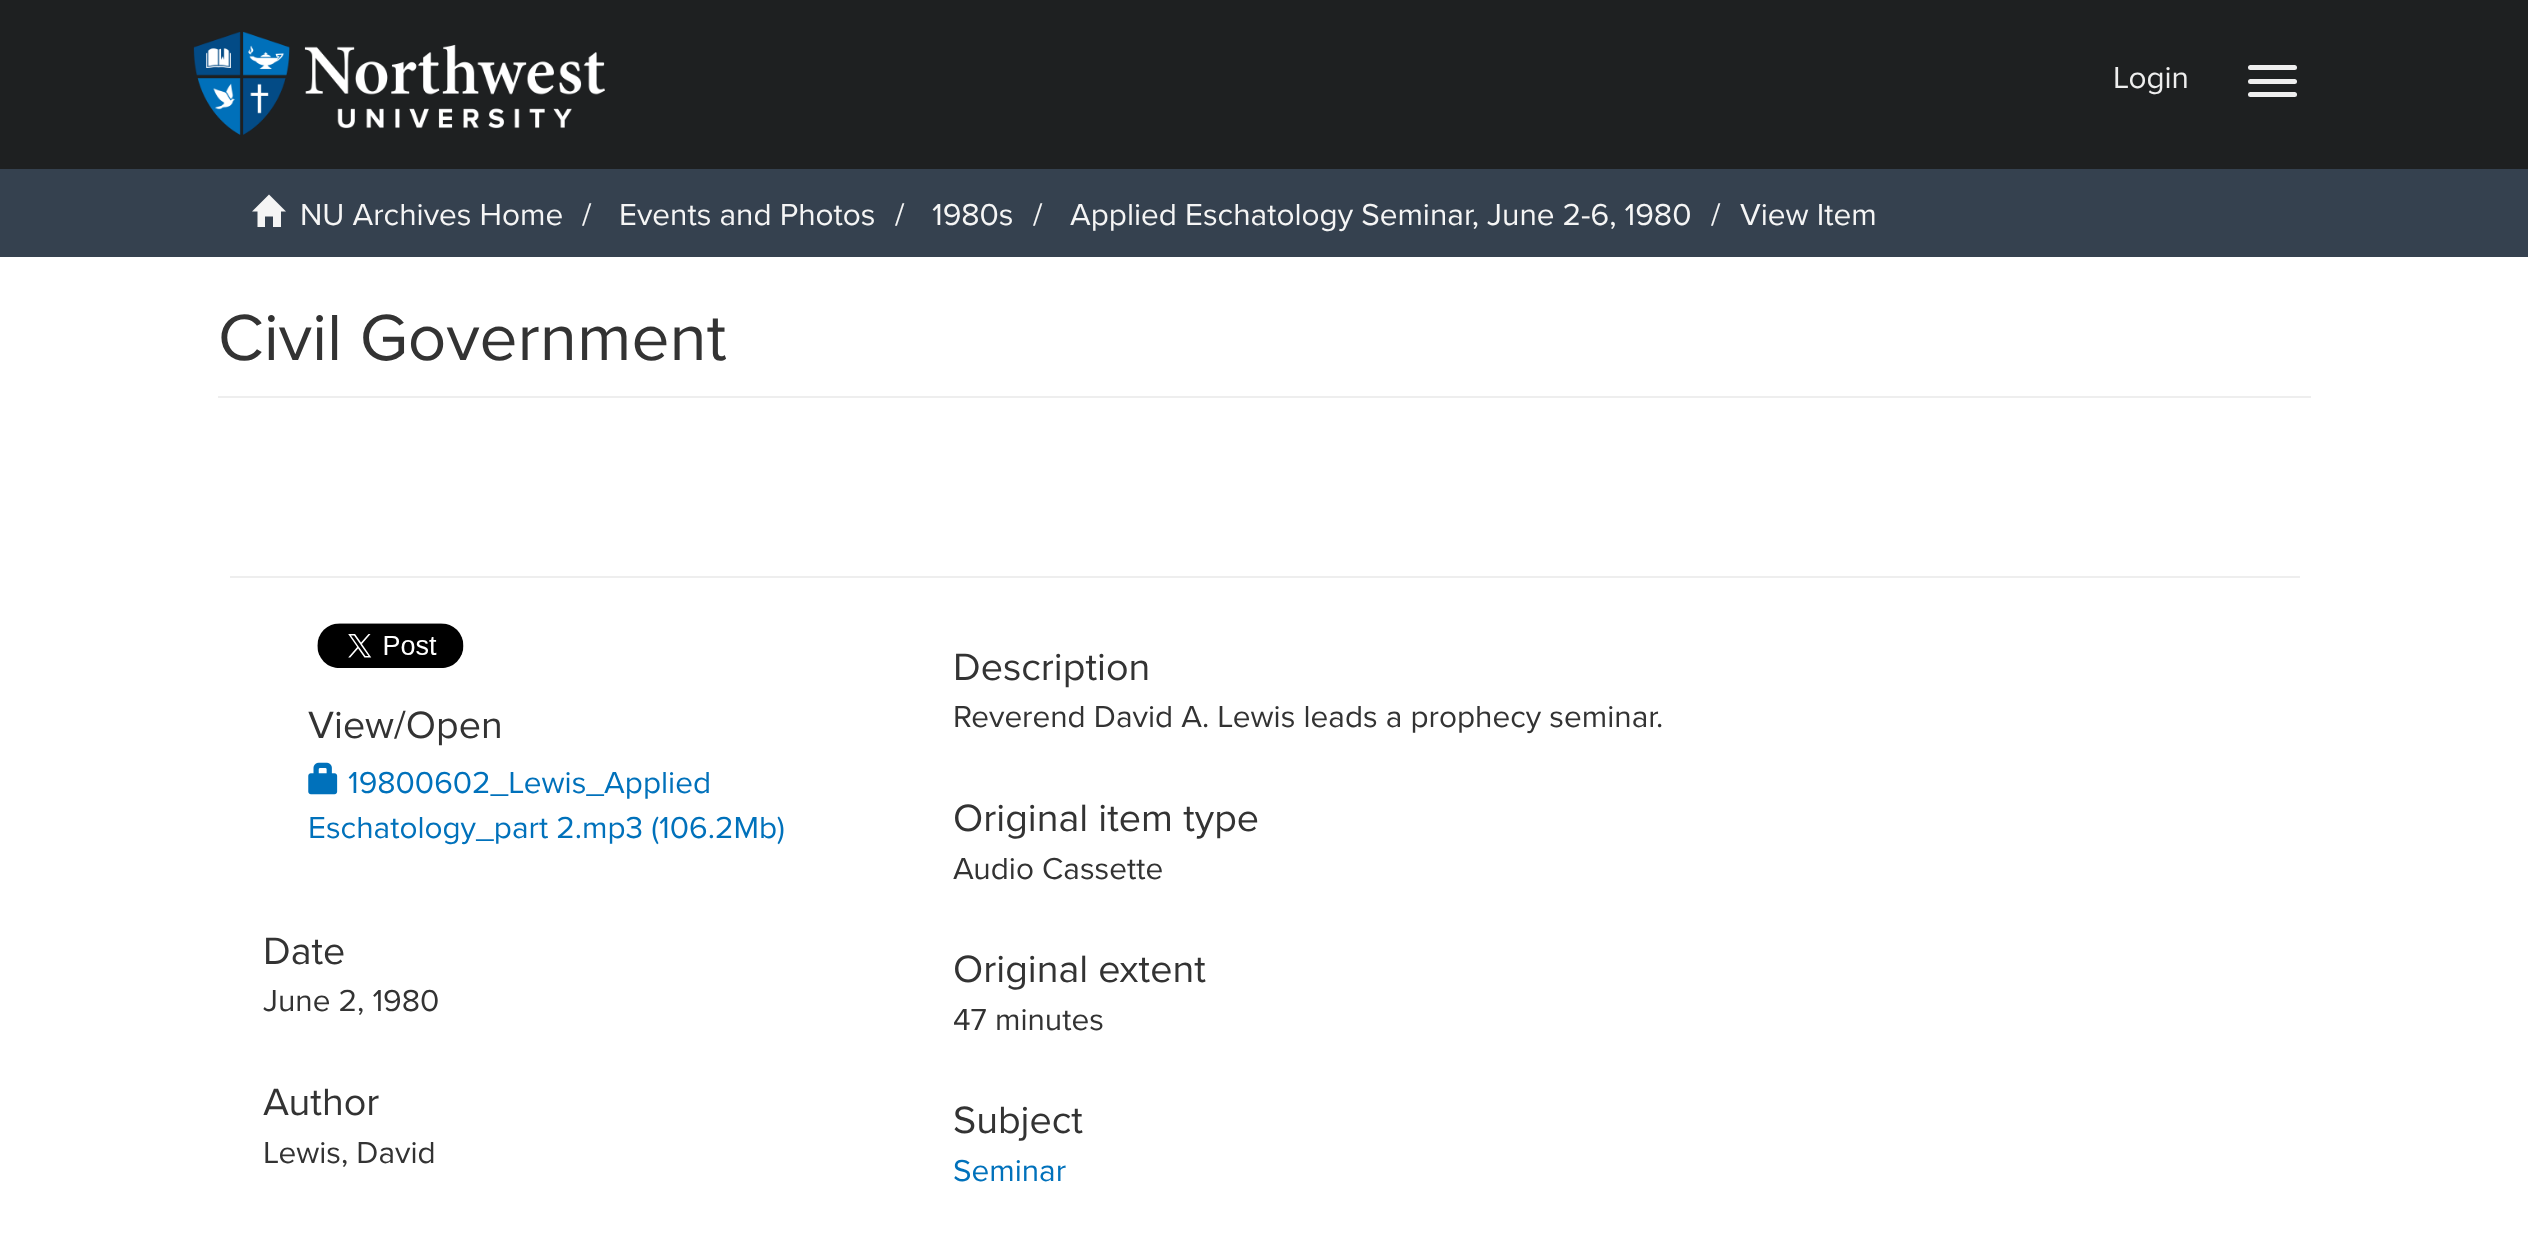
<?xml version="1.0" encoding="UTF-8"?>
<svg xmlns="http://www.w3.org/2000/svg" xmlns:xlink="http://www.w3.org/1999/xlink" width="2528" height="1236">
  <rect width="100%" height="100%" fill="#ffffff" />
  <rect width="2528" height="169" fill="#1e2021" />
  <image x="193" y="31" width="412" height="104" xlink:href="image1.png" />
  <rect x="2248" y="65" width="49" height="5" rx="2.5" fill="#eeeeee" />
  <rect x="2248" y="79" width="49" height="5" rx="2.5" fill="#eeeeee" />
  <rect x="2248" y="92" width="49" height="5" rx="2.5" fill="#eeeeee" />
  <rect y="169" width="2528" height="88" fill="#35414f" />
  <path d="M 252 211.5 l 17 -17 l 17 17 h -5 v 15.5 h -8 v -10.5 h -8 v 10.5 h -7.5 v -15.5 z" fill="#f5f5f5" />
  <rect x="218" y="396" width="2093" height="2" fill="#eeeeee" />
  <rect x="230" y="576" width="2070" height="2" fill="#eeeeee" />
  <image x="317" y="623" width="147" height="45" xlink:href="image2.png" />
  <image x="308" y="762" width="30" height="33" xlink:href="image3.png" />
  <text x="2113" y="88" style="font-family: Proxima Nova; font-size: 31.5px; fill: #eeeeee">Login</text>
  <text x="300" y="225" style="font-family: Proxima Nova; font-size: 31.5px; fill: #f5f5f5">NU Archives Home</text>
  <text x="582" y="225" style="font-family: Proxima Nova; font-size: 31.5px; fill: #f5f5f5">/</text>
  <text x="619" y="225" style="font-family: Proxima Nova; font-size: 31.5px; fill: #f5f5f5">Events and Photos</text>
  <text x="895" y="225" style="font-family: Proxima Nova; font-size: 31.5px; fill: #f5f5f5">/</text>
  <text x="932" y="225" style="font-family: Proxima Nova; font-size: 31.5px; fill: #f5f5f5">1980s</text>
  <text x="1033" y="225" style="font-family: Proxima Nova; font-size: 31.5px; fill: #f5f5f5">/</text>
  <text x="1070" y="225" style="font-family: Proxima Nova; font-size: 31.5px; fill: #f5f5f5">Applied Eschatology Seminar, June 2-6, 1980</text>
  <text x="1711" y="225" style="font-family: Proxima Nova; font-size: 31.5px; fill: #f5f5f5">/</text>
  <text x="1740" y="225" style="font-family: Proxima Nova; font-size: 31.5px; fill: #f5f5f5">View Item</text>
  <text x="218" y="360" style="font-family: Proxima Nova; font-size: 67.5px; fill: #333333">Civil Government</text>
  <text x="308" y="738" style="font-family: Proxima Nova; font-size: 39.5px; fill: #333333">View/Open</text>
  <text x="348" y="793" style="font-family: Proxima Nova; font-size: 31.5px; fill: #0071bb">19800602_Lewis_Applied</text>
  <text x="308" y="838" style="font-family: Proxima Nova; font-size: 31.5px; fill: #0071bb">Eschatology_part 2.mp3 (106.2Mb)</text>
  <text x="263" y="964" style="font-family: Proxima Nova; font-size: 39.5px; fill: #333333">Date</text>
  <text x="263" y="1011" style="font-family: Proxima Nova; font-size: 31.5px; fill: #333333">June 2, 1980</text>
  <text x="263" y="1115" style="font-family: Proxima Nova; font-size: 39.5px; fill: #333333">Author</text>
  <text x="263" y="1163" style="font-family: Proxima Nova; font-size: 31.5px; fill: #333333">Lewis, David</text>
  <text x="953" y="680" style="font-family: Proxima Nova; font-size: 39.5px; fill: #333333">Description</text>
  <text x="953" y="727" style="font-family: Proxima Nova; font-size: 31.5px; fill: #333333">Reverend David A. Lewis leads a prophecy seminar.</text>
  <text x="953" y="831" style="font-family: Proxima Nova; font-size: 39.5px; fill: #333333">Original item type</text>
  <text x="953" y="879" style="font-family: Proxima Nova; font-size: 31.5px; fill: #333333">Audio Cassette</text>
  <text x="953" y="982" style="font-family: Proxima Nova; font-size: 39.5px; fill: #333333">Original extent</text>
  <text x="953" y="1030" style="font-family: Proxima Nova; font-size: 31.5px; fill: #333333">47 minutes</text>
  <text x="953" y="1133" style="font-family: Proxima Nova; font-size: 39.5px; fill: #333333">Subject</text>
  <text x="953" y="1181" style="font-family: Proxima Nova; font-size: 31.5px; fill: #0071bb">Seminar</text>
</svg>
